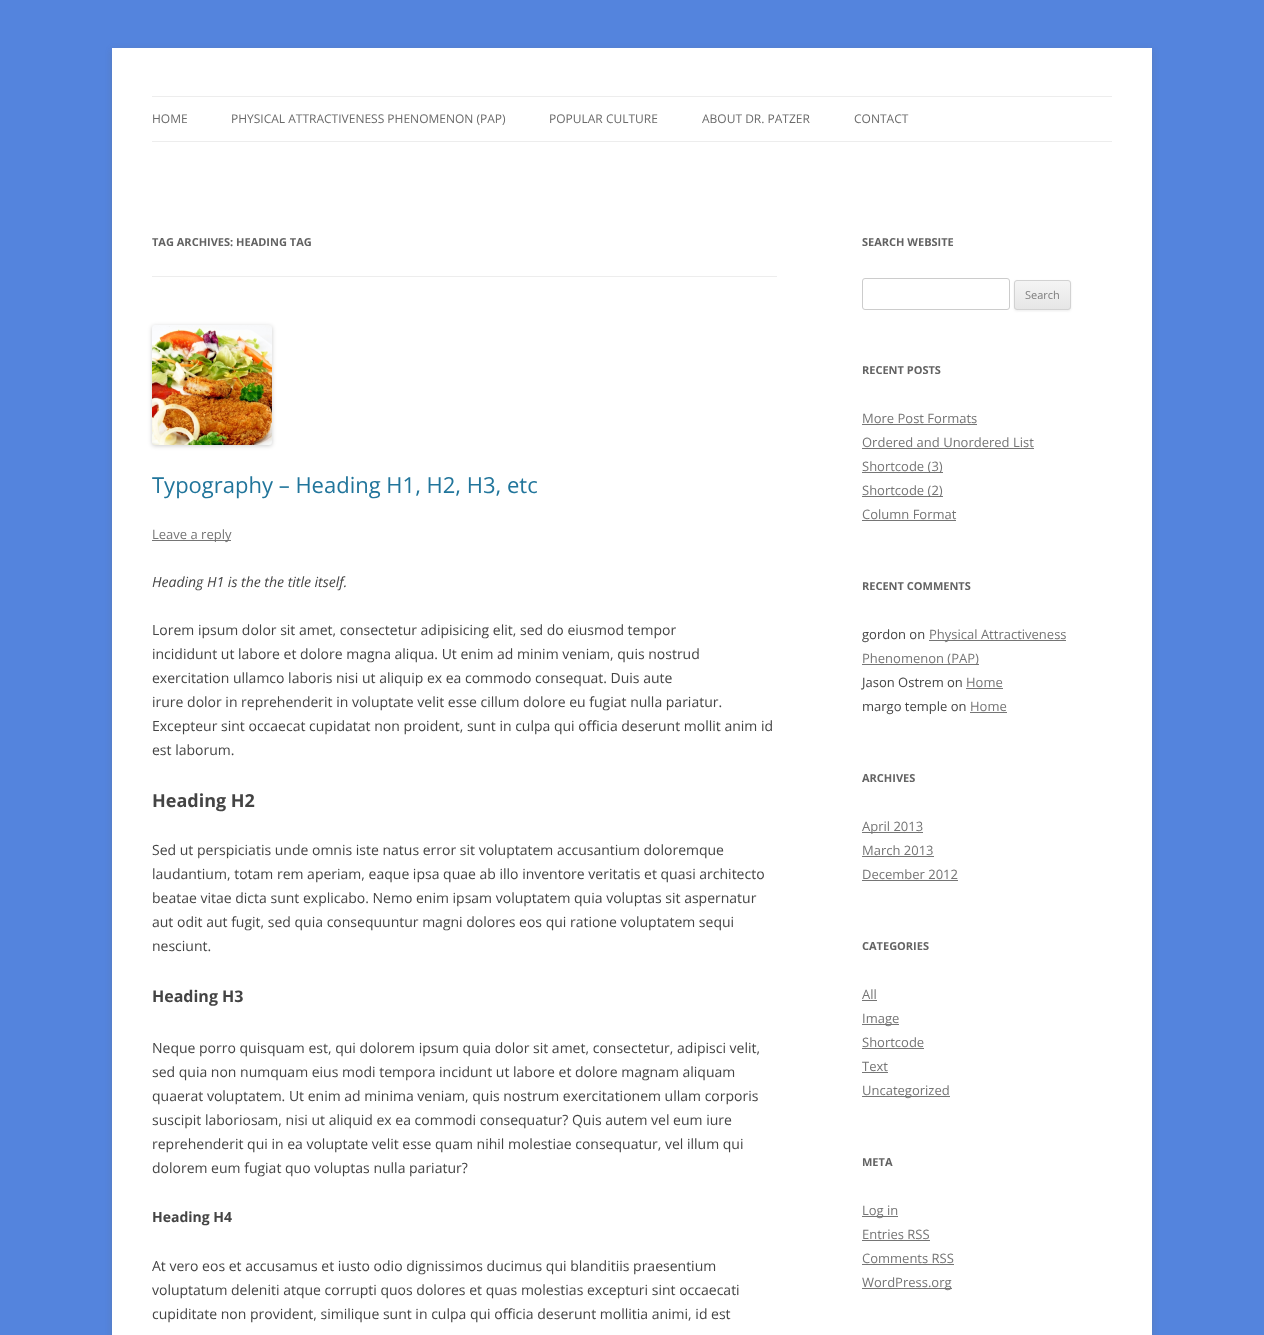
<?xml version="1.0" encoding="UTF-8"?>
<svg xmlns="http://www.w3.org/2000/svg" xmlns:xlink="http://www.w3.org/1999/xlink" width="1264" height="1335">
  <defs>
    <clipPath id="clip1"><rect x="1014" y="280" width="57" height="30" rx="3" /></clipPath>
    <linearGradient id="g1" gradientUnits="userSpaceOnUse" x1="1043" y1="281" x2="1043" y2="309"><stop offset="0" stop-color="#f4f4f4" /><stop offset="1" stop-color="#e6e6e6" /></linearGradient>
  </defs>
  <rect width="100%" height="100%" fill="#5484dd" />
  <rect x="112" y="50" width="1040" height="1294" fill="#646464" fill-opacity="0.3" filter="blur(3px)" />
  <rect x="112" y="48" width="1040" height="1287" fill="#ffffff" />
  <rect x="152" y="96" width="960" height="1" fill="#ededed" />
  <rect x="152" y="141" width="960" height="1" fill="#ededed" />
  <rect x="152" y="276" width="625" height="1" fill="#ededed" />
  <rect x="152" y="326" width="120" height="120" rx="3" fill="#000000" fill-opacity="0.2" filter="blur(2px)" />
  <image x="152" y="325" width="120" height="120" xlink:href="image1.png" />
  <rect x="152" y="540" width="79" height="1" fill="#757575" />
  <rect x="862.5" y="278.5" width="147" height="31" rx="2.5" fill="none" stroke="#cccccc" />
  <rect x="1014" y="281" width="57" height="30" rx="3" fill="#404040" fill-opacity="0.1" filter="blur(1px)" />
  <g clip-path="url(#clip1)">
    <rect x="1014" y="281" width="57" height="28" fill="url(#g1)" />
  </g>
  <rect x="1014.5" y="280.5" width="56" height="29" rx="2.5" fill="none" stroke="#d2d2d2" />
  <rect x="862" y="424" width="115" height="1" fill="#757575" />
  <rect x="862" y="448" width="172" height="1" fill="#757575" />
  <rect x="862" y="472" width="81" height="1" fill="#757575" />
  <rect x="862" y="496" width="81" height="1" fill="#757575" />
  <rect x="862" y="520" width="94" height="1" fill="#757575" />
  <rect x="929" y="640" width="137" height="1" fill="#757575" />
  <rect x="862" y="664" width="117" height="1" fill="#757575" />
  <rect x="966" y="688" width="37" height="1" fill="#757575" />
  <rect x="970" y="712" width="37" height="1" fill="#757575" />
  <rect x="862" y="832" width="61" height="1" fill="#757575" />
  <rect x="862" y="856" width="72" height="1" fill="#757575" />
  <rect x="862" y="880" width="96" height="1" fill="#757575" />
  <rect x="862" y="1000" width="15" height="1" fill="#757575" />
  <rect x="862" y="1024" width="37" height="1" fill="#757575" />
  <rect x="862" y="1048" width="62" height="1" fill="#757575" />
  <rect x="862" y="1072" width="26" height="1" fill="#757575" />
  <rect x="862" y="1096" width="88" height="1" fill="#757575" />
  <rect x="862" y="1216" width="36" height="1" fill="#757575" />
  <rect x="862" y="1240" width="68" height="1" fill="#757575" />
  <rect x="862" y="1264" width="70" height="1" fill="#757575" />
  <path d="M 931.5 1264.5 h 22.5" fill="none" stroke="#757575" stroke-dasharray="1 1" />
  <rect x="932" y="1264" width="22" height="1" fill="#757575" />
  <rect x="862" y="1288" width="90" height="1" fill="#757575" />
  <text x="152" y="123" style="font-family: Open Sans; font-size: 12px; fill: #6a6a6a">HOME</text>
  <text x="231" y="123" style="font-family: Open Sans; font-size: 12px; fill: #6a6a6a">PHYSICAL ATTRACTIVENESS PHENOMENON (PAP)</text>
  <text x="549" y="123" style="font-family: Open Sans; font-size: 12px; fill: #6a6a6a">POPULAR CULTURE</text>
  <text x="702" y="123" style="font-family: Open Sans; font-size: 12px; fill: #6a6a6a">ABOUT DR. PATZER</text>
  <text x="854" y="123" style="font-family: Open Sans; font-size: 12px; fill: #6a6a6a">CONTACT</text>
  <text x="152" y="246" style="font-family: Open Sans; font-size: 11px; font-weight: bold; fill: #636363">TAG ARCHIVES: HEADING TAG</text>
  <text x="152" y="493" style="font-family: Open Sans; font-size: 22px; fill: #21759b">Typography – Heading H1, H2, H3, etc</text>
  <text x="152" y="539" style="font-family: Open Sans; font-size: 13px; fill: #757575">Leave a reply</text>
  <text x="152" y="587" style="font-family: Open Sans; font-size: 14px; font-style: italic; fill: #444444">Heading H1 is the the title itself.</text>
  <text x="152" y="635" style="font-family: Open Sans; font-size: 14px; fill: #444444">Lorem ipsum dolor sit amet, consectetur adipisicing elit, sed do eiusmod tempor</text>
  <text x="152" y="659" style="font-family: Open Sans; font-size: 14px; fill: #444444">incididunt ut labore et dolore magna aliqua. Ut enim ad minim veniam, quis nostrud</text>
  <text x="152" y="683" style="font-family: Open Sans; font-size: 14px; fill: #444444">exercitation ullamco laboris nisi ut aliquip ex ea commodo consequat. Duis aute</text>
  <text x="152" y="707" style="font-family: Open Sans; font-size: 14px; fill: #444444">irure dolor in reprehenderit in voluptate velit esse cillum dolore eu fugiat nulla pariatur.</text>
  <text x="152" y="731" style="font-family: Open Sans; font-size: 14px; fill: #444444">Excepteur sint occaecat cupidatat non proident, sunt in culpa qui officia deserunt mollit anim id</text>
  <text x="152" y="755" style="font-family: Open Sans; font-size: 14px; fill: #444444">est laborum.</text>
  <text x="152" y="807" style="font-family: Open Sans; font-size: 18px; font-weight: bold; fill: #444444">Heading H2</text>
  <text x="152" y="855" style="font-family: Open Sans; font-size: 14px; fill: #444444">Sed ut perspiciatis unde omnis iste natus error sit voluptatem accusantium doloremque</text>
  <text x="152" y="879" style="font-family: Open Sans; font-size: 14px; fill: #444444">laudantium, totam rem aperiam, eaque ipsa quae ab illo inventore veritatis et quasi architecto</text>
  <text x="152" y="903" style="font-family: Open Sans; font-size: 14px; fill: #444444">beatae vitae dicta sunt explicabo. Nemo enim ipsam voluptatem quia voluptas sit aspernatur</text>
  <text x="152" y="927" style="font-family: Open Sans; font-size: 14px; fill: #444444">aut odit aut fugit, sed quia consequuntur magni dolores eos qui ratione voluptatem sequi</text>
  <text x="152" y="951" style="font-family: Open Sans; font-size: 14px; fill: #444444">nesciunt.</text>
  <text x="152" y="1002" style="font-family: Open Sans; font-size: 16px; font-weight: bold; fill: #444444">Heading H3</text>
  <text x="152" y="1053" style="font-family: Open Sans; font-size: 14px; fill: #444444">Neque porro quisquam est, qui dolorem ipsum quia dolor sit amet, consectetur, adipisci velit,</text>
  <text x="152" y="1077" style="font-family: Open Sans; font-size: 14px; fill: #444444">sed quia non numquam eius modi tempora incidunt ut labore et dolore magnam aliquam</text>
  <text x="152" y="1101" style="font-family: Open Sans; font-size: 14px; fill: #444444">quaerat voluptatem. Ut enim ad minima veniam, quis nostrum exercitationem ullam corporis</text>
  <text x="152" y="1125" style="font-family: Open Sans; font-size: 14px; fill: #444444">suscipit laboriosam, nisi ut aliquid ex ea commodi consequatur? Quis autem vel eum iure</text>
  <text x="152" y="1149" style="font-family: Open Sans; font-size: 14px; fill: #444444">reprehenderit qui in ea voluptate velit esse quam nihil molestiae consequatur, vel illum qui</text>
  <text x="152" y="1173" style="font-family: Open Sans; font-size: 14px; fill: #444444">dolorem eum fugiat quo voluptas nulla pariatur?</text>
  <text x="152" y="1222" style="font-family: Open Sans; font-size: 14px; font-weight: bold; fill: #444444">Heading H4</text>
  <text x="152" y="1271" style="font-family: Open Sans; font-size: 14px; fill: #444444">At vero eos et accusamus et iusto odio dignissimos ducimus qui blanditiis praesentium</text>
  <text x="152" y="1295" style="font-family: Open Sans; font-size: 14px; fill: #444444">voluptatum deleniti atque corrupti quos dolores et quas molestias excepturi sint occaecati</text>
  <text x="152" y="1319" style="font-family: Open Sans; font-size: 14px; fill: #444444">cupiditate non provident, similique sunt in culpa qui officia deserunt mollitia animi, id est</text>
  <text x="862" y="246" style="font-family: Open Sans; font-size: 11px; font-weight: bold; fill: #636363">SEARCH WEBSITE</text>
  <text x="1025" y="299" style="font-family: Open Sans; font-size: 11px; fill: #7c7c7c">Search</text>
  <text x="862" y="374" style="font-family: Open Sans; font-size: 11px; font-weight: bold; fill: #636363">RECENT POSTS</text>
  <text x="862" y="423" style="font-family: Open Sans; font-size: 13px; fill: #757575">More Post Formats</text>
  <text x="862" y="447" style="font-family: Open Sans; font-size: 13px; fill: #757575">Ordered and Unordered List</text>
  <text x="862" y="471" style="font-family: Open Sans; font-size: 13px; fill: #757575">Shortcode (3)</text>
  <text x="862" y="495" style="font-family: Open Sans; font-size: 13px; fill: #757575">Shortcode (2)</text>
  <text x="862" y="519" style="font-family: Open Sans; font-size: 13px; fill: #757575">Column Format</text>
  <text x="862" y="590" style="font-family: Open Sans; font-size: 11px; font-weight: bold; fill: #636363">RECENT COMMENTS</text>
  <text x="862" y="639" style="font-family: Open Sans; font-size: 13px; fill: #444444">gordon on</text>
  <text x="929" y="639" style="font-family: Open Sans; font-size: 13px; fill: #757575">Physical Attractiveness</text>
  <text x="862" y="663" style="font-family: Open Sans; font-size: 13px; fill: #757575">Phenomenon (PAP)</text>
  <text x="862" y="687" style="font-family: Open Sans; font-size: 13px; fill: #444444">Jason Ostrem on</text>
  <text x="966" y="687" style="font-family: Open Sans; font-size: 13px; fill: #757575">Home</text>
  <text x="862" y="711" style="font-family: Open Sans; font-size: 13px; fill: #444444">margo temple on</text>
  <text x="970" y="711" style="font-family: Open Sans; font-size: 13px; fill: #757575">Home</text>
  <text x="862" y="782" style="font-family: Open Sans; font-size: 11px; font-weight: bold; fill: #636363">ARCHIVES</text>
  <text x="862" y="831" style="font-family: Open Sans; font-size: 13px; fill: #757575">April 2013</text>
  <text x="862" y="855" style="font-family: Open Sans; font-size: 13px; fill: #757575">March 2013</text>
  <text x="862" y="879" style="font-family: Open Sans; font-size: 13px; fill: #757575">December 2012</text>
  <text x="862" y="950" style="font-family: Open Sans; font-size: 11px; font-weight: bold; fill: #636363">CATEGORIES</text>
  <text x="862" y="999" style="font-family: Open Sans; font-size: 13px; fill: #757575">All</text>
  <text x="862" y="1023" style="font-family: Open Sans; font-size: 13px; fill: #757575">Image</text>
  <text x="862" y="1047" style="font-family: Open Sans; font-size: 13px; fill: #757575">Shortcode</text>
  <text x="862" y="1071" style="font-family: Open Sans; font-size: 13px; fill: #757575">Text</text>
  <text x="862" y="1095" style="font-family: Open Sans; font-size: 13px; fill: #757575">Uncategorized</text>
  <text x="862" y="1166" style="font-family: Open Sans; font-size: 11px; font-weight: bold; fill: #636363">META</text>
  <text x="862" y="1215" style="font-family: Open Sans; font-size: 13px; fill: #757575">Log in</text>
  <text x="862" y="1239" style="font-family: Open Sans; font-size: 13px; fill: #757575">Entries RSS</text>
  <text x="862" y="1263" style="font-family: Open Sans; font-size: 13px; fill: #757575">Comments RSS</text>
  <text x="862" y="1287" style="font-family: Open Sans; font-size: 13px; fill: #757575">WordPress.org</text>
</svg>
